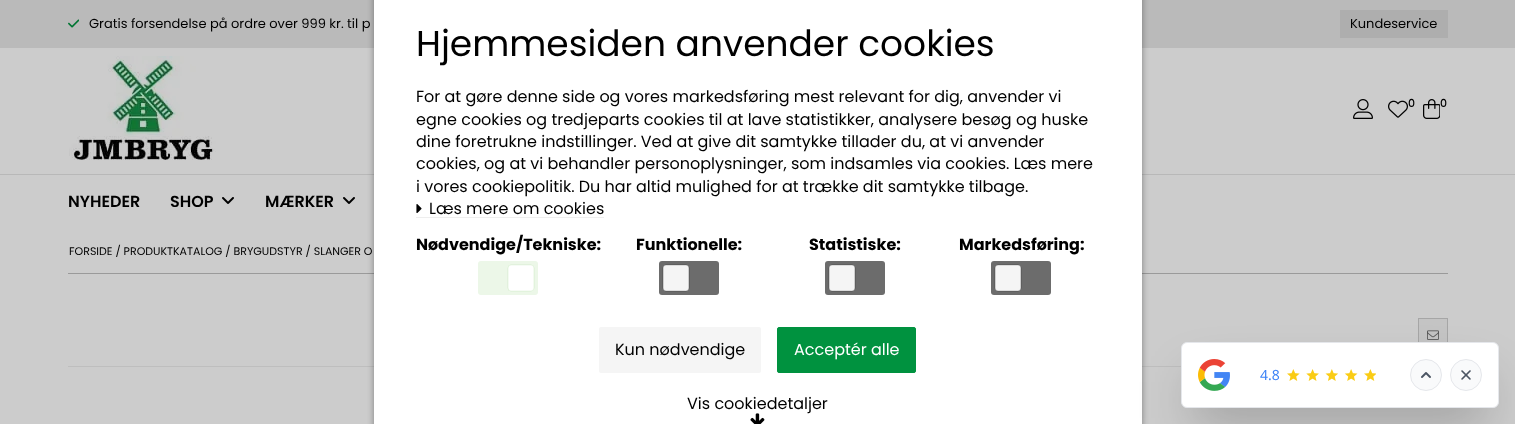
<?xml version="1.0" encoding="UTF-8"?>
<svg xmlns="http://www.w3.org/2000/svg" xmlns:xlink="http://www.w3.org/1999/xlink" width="1515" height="424">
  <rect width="100%" height="100%" fill="#cccccc" />
  <rect width="1515" height="48" fill="#bababa" />
  <image x="68" y="19" width="11" height="9" xlink:href="image1.png" />
  <rect x="1340" y="10" width="108" height="28" fill="#aeaeae" />
  <image x="69" y="56" width="147" height="104" xlink:href="image2.png" />
  <image x="1353" y="99" width="20" height="20" xlink:href="image3.png" />
  <image x="1388" y="100" width="20" height="18" xlink:href="image4.png" />
  <image x="1423" y="99" width="17" height="20" xlink:href="image5.png" />
  <rect y="174" width="1515" height="1" fill="#b8b8b8" />
  <image x="222" y="197" width="12" height="7" xlink:href="image6.png" />
  <image x="343" y="197" width="12" height="7" xlink:href="image6.png" />
  <rect x="68" y="273" width="1380" height="1" fill="#9a9a9a" />
  <rect x="68" y="366" width="1113" height="1" fill="#bebebe" />
  <rect x="374" y="-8" width="768" height="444" rx="3" fill="#000000" fill-opacity="0.23" filter="blur(3px)" />
  <rect x="374" y="-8" width="768" height="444" rx="3" fill="#000000" fill-opacity="0.16" filter="blur(3px)" />
  <rect x="374" width="768" height="424" fill="#ffffff" />
  <rect x="416" y="217" width="188" height="1" fill="#eeeeee" />
  <image x="416" y="204" width="6" height="9" xlink:href="image7.png" />
  <rect x="478" y="261" width="60" height="34" rx="3" fill="#ecf7e8" />
  <rect x="508.1" y="265.1" width="25.8" height="25.8" rx="2.9" fill="none" stroke="#b3dea5" stroke-width="0.2" />
  <rect x="508.1" y="265.1" width="25.8" height="25.8" rx="2.9" fill="#ffffff" stroke="#b3dea5" stroke-width="0.2" />
  <rect x="659" y="261" width="60" height="34" rx="3" fill="#6c6c6c" />
  <rect x="663.1" y="265.1" width="25.8" height="25.8" rx="2.9" fill="none" stroke="#202020" stroke-width="0.2" />
  <rect x="663.1" y="265.1" width="25.8" height="25.8" rx="2.9" fill="#f5f5f5" stroke="#202020" stroke-width="0.2" />
  <rect x="825" y="261" width="60" height="34" rx="3" fill="#6c6c6c" />
  <rect x="829.1" y="265.1" width="25.8" height="25.8" rx="2.9" fill="none" stroke="#202020" stroke-width="0.2" />
  <rect x="829.1" y="265.1" width="25.8" height="25.8" rx="2.9" fill="#f5f5f5" stroke="#202020" stroke-width="0.2" />
  <rect x="991" y="261" width="60" height="34" rx="3" fill="#6c6c6c" />
  <rect x="995.1" y="265.1" width="25.8" height="25.8" rx="2.9" fill="none" stroke="#202020" stroke-width="0.2" />
  <rect x="995.1" y="265.1" width="25.8" height="25.8" rx="2.9" fill="#f5f5f5" stroke="#202020" stroke-width="0.2" />
  <rect x="599" y="327" width="162" height="46" rx="2" fill="#f5f5f5" />
  <rect x="777.5" y="327.5" width="138" height="45" rx="1.5" fill="#00923f" stroke="#00923f" />
  <rect x="1419" y="319" width="28" height="23" fill="#c4c4c4" />
  <rect x="1418.5" y="318.5" width="29" height="31" fill="none" stroke="#a6a6a6" />
  <image x="1427" y="330" width="12" height="10" xlink:href="image9.png" />
  <rect x="1193" y="379" width="294" height="42" fill="#000000" fill-opacity="0.25" filter="blur(25px)" />
  <rect x="1181.5" y="342.5" width="317" height="65" rx="5.5" fill="#ffffff" stroke="#e5e7eb" />
  <image x="1198" y="359" width="32" height="32" xlink:href="image10.png" />
  <rect x="1287" y="369" width="89" height="12" fill="#facc15" />
  <image x="1284" y="367" width="96" height="16" xlink:href="image11.png" />
  <circle cx="1426" cy="375" r="15.5" fill="#f9fafb" stroke="#e5e7eb" />
  <image x="1421" y="372" width="10" height="6" xlink:href="image12.png" />
  <circle cx="1466" cy="375" r="15.5" fill="#f9fafb" stroke="#e5e7eb" />
  <image x="1461" y="370" width="10" height="10" xlink:href="image13.png" />
  <text x="89" y="28" style="font-family: Poppins; font-size: 13px; fill: #000000">Gratis forsendelse på ordre over 999 kr. til p</text>
  <text x="1350" y="28" style="font-family: Poppins; font-size: 13px; fill: #000000">Kundeservice</text>
  <text x="1408" y="107" style="font-family: Poppins; font-size: 11px; font-weight: 500; fill: #000000">0</text>
  <text x="1440" y="107" style="font-family: Poppins; font-size: 11px; font-weight: 500; fill: #000000">0</text>
  <text x="68" y="207" style="font-family: Poppins; font-size: 16px; font-weight: 600; fill: #000000">NYHEDER</text>
  <text x="170" y="207" style="font-family: Poppins; font-size: 16px; font-weight: 600; fill: #000000">SHOP</text>
  <text x="265" y="207" style="font-family: Poppins; font-size: 16px; font-weight: 600; fill: #000000">MÆRKER</text>
  <text x="69" y="255" style="font-family: Poppins; font-size: 11px; fill: #000000">FORSIDE / PRODUKTKATALOG / BRYGUDSTYR / SLANGER O</text>
  <text x="416" y="56" style="font-family: Poppins; font-size: 36px; fill: #000000">Hjemmesiden anvender cookies</text>
  <text x="416" y="102" style="font-family: Poppins; font-size: 16px; fill: #000000">For at gøre denne side og vores markedsføring mest relevant for dig, anvender vi</text>
  <text x="416" y="125" style="font-family: Poppins; font-size: 16px; fill: #000000">egne cookies og tredjeparts cookies til at lave statistikker, analysere besøg og huske</text>
  <text x="416" y="147" style="font-family: Poppins; font-size: 16px; fill: #000000">dine foretrukne indstillinger. Ved at give dit samtykke tillader du, at vi anvender</text>
  <text x="416" y="169" style="font-family: Poppins; font-size: 16px; fill: #000000">cookies, og at vi behandler personoplysninger, som indsamles via cookies. Læs mere</text>
  <text x="416" y="192" style="font-family: Poppins; font-size: 16px; fill: #000000">i vores cookiepolitik. Du har altid mulighed for at trække dit samtykke tilbage.</text>
  <text x="429" y="214" style="font-family: Poppins; font-size: 16px; fill: #000000">Læs mere om cookies</text>
  <text x="416" y="250" style="font-family: Poppins; font-size: 16px; font-weight: bold; fill: #000000">Nødvendige/Tekniske:</text>
  <text x="636" y="250" style="font-family: Poppins; font-size: 16px; font-weight: bold; fill: #000000">Funktionelle:</text>
  <text x="809" y="250" style="font-family: Poppins; font-size: 16px; font-weight: bold; fill: #000000">Statistiske:</text>
  <text x="959" y="250" style="font-family: Poppins; font-size: 16px; font-weight: bold; fill: #000000">Markedsføring:</text>
  <text x="615" y="355" style="font-family: Poppins; font-size: 16px; fill: #000000">Kun nødvendige</text>
  <text x="794" y="355" style="font-family: Poppins; font-size: 16px; fill: #ffffff">Acceptér alle</text>
  <text x="687" y="409" style="font-family: Poppins; font-size: 16px; fill: #000000">Vis cookiedetaljer</text>
  <image x="750" y="413" width="15" height="11" xlink:href="image8.png" />
  <text x="1260" y="380" style="font-family: Noto Sans; font-size: 14px; fill: #3b82f6">4.8</text>
</svg>
